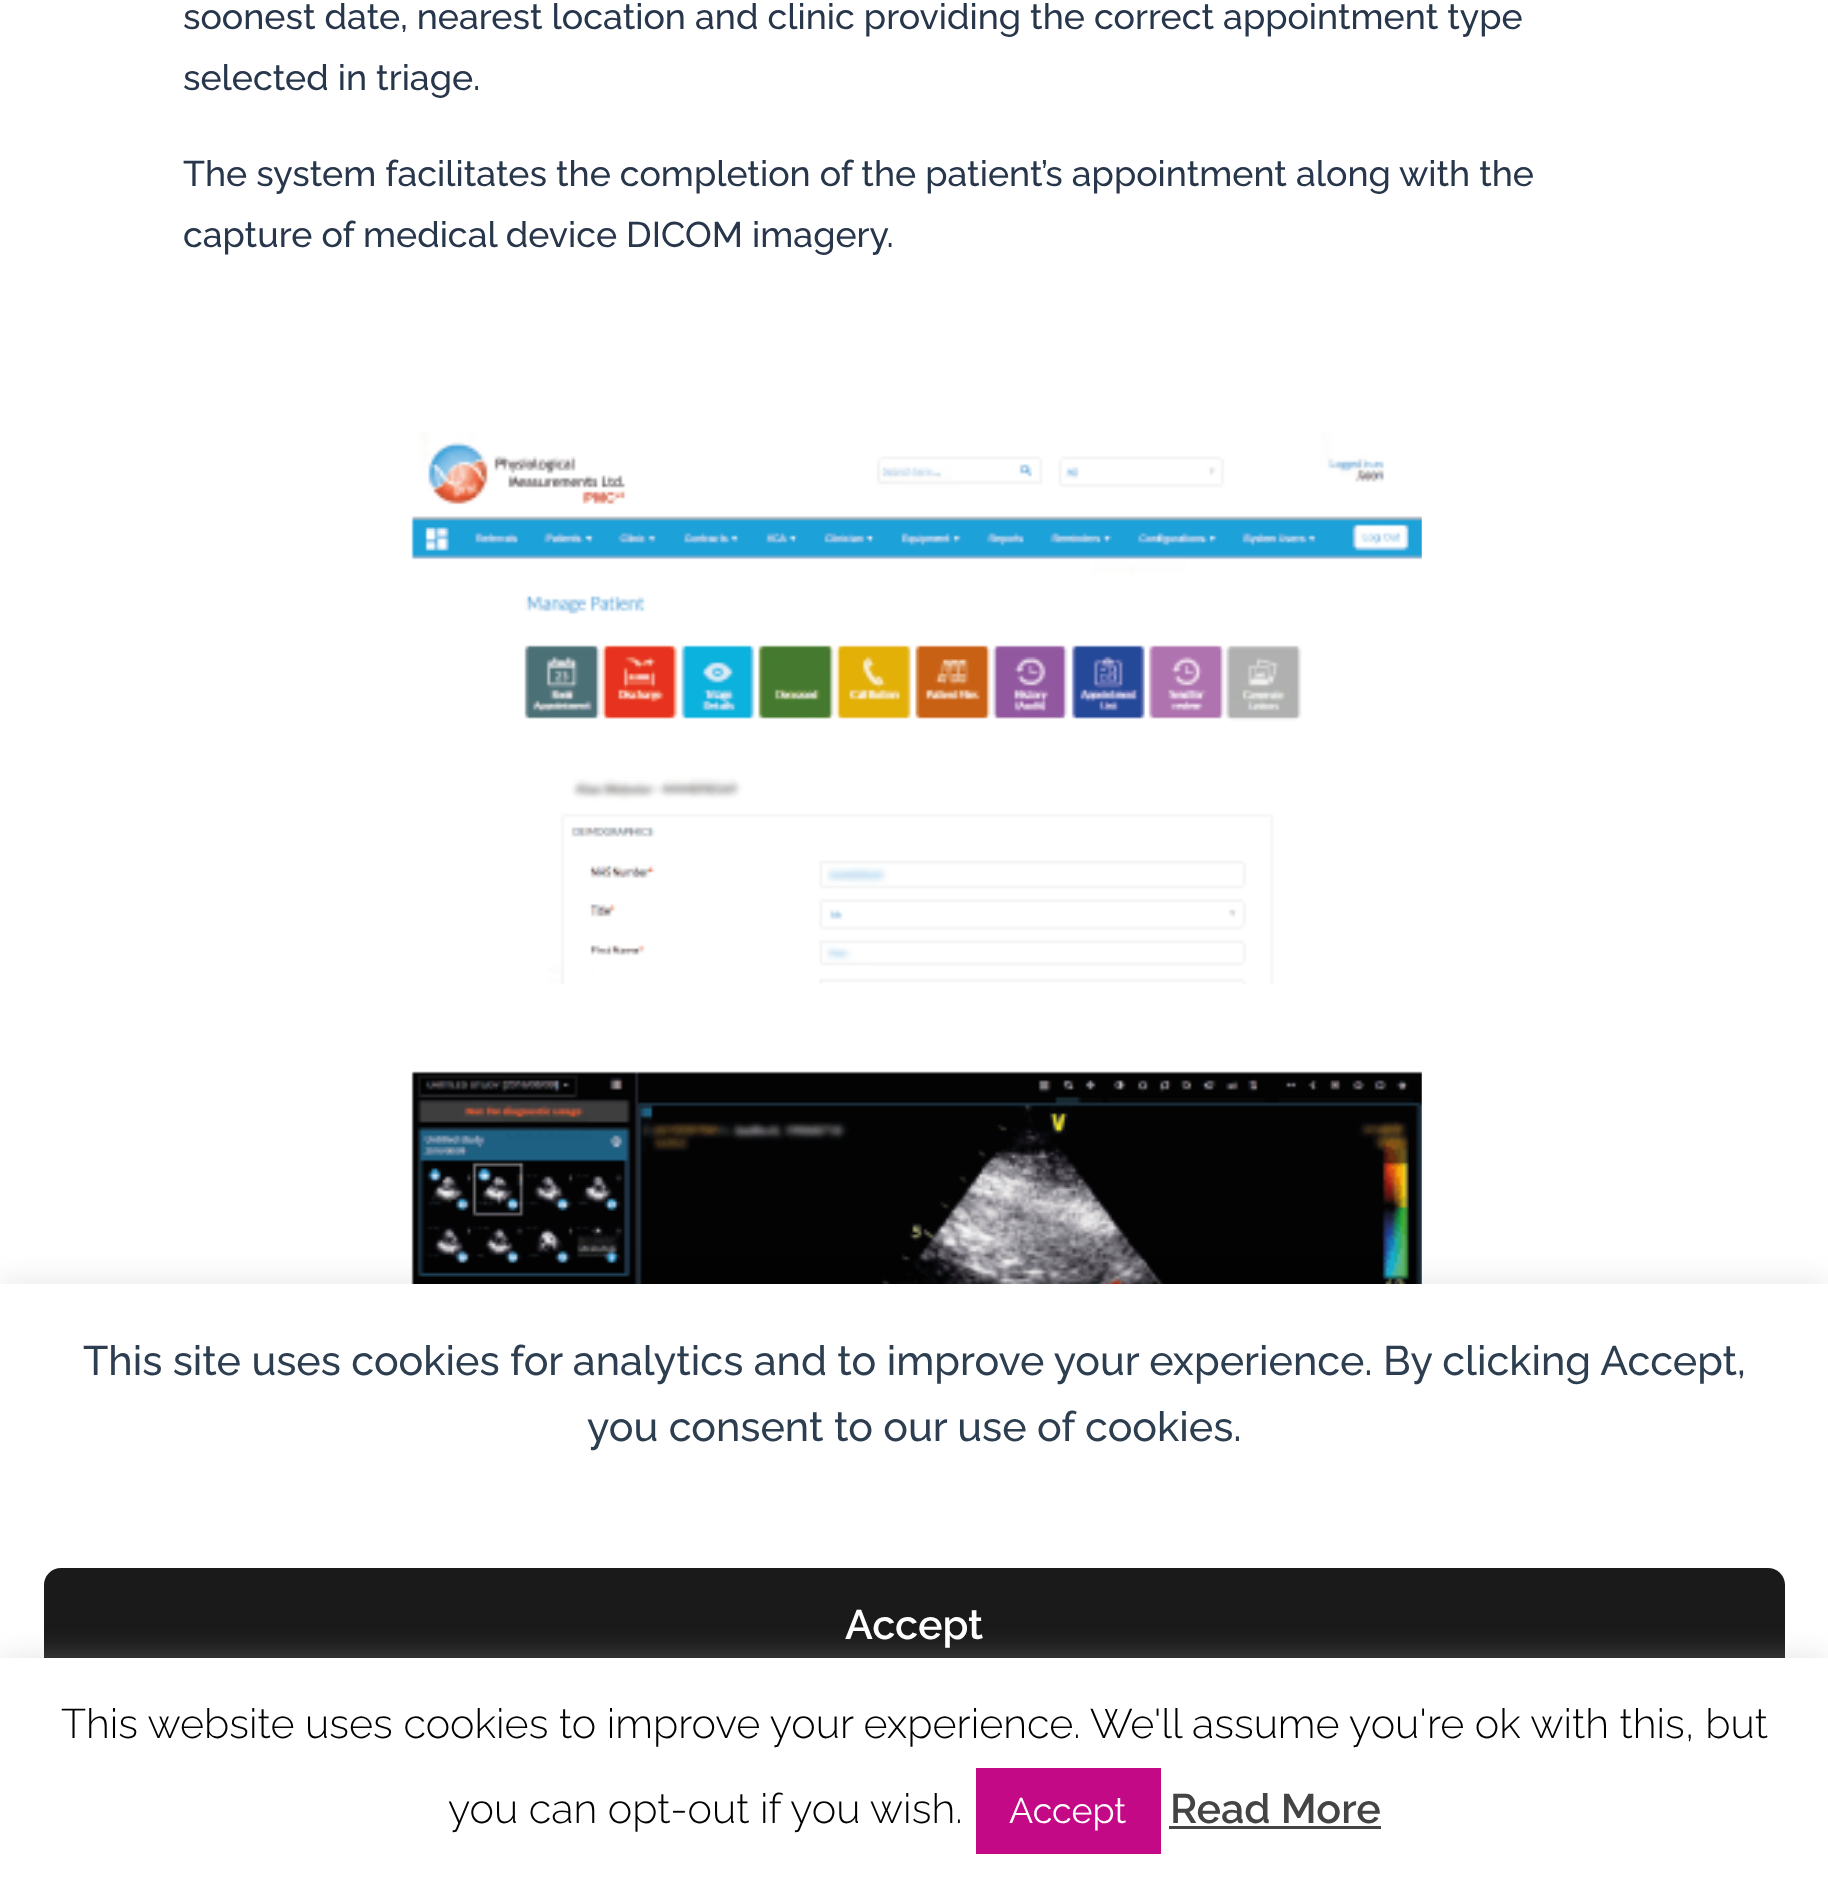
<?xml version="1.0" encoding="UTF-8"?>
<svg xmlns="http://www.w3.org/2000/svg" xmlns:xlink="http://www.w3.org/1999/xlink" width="1828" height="1885">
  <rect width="100%" height="100%" fill="#ffffff" />
  <image x="411" y="432" width="1011" height="553" xlink:href="image1.png" />
  <image x="411" y="1071" width="1011" height="213" xlink:href="image2.png" />
  <rect y="1279" width="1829" height="602" fill="#000000" fill-opacity="0.08" filter="blur(14px)" />
  <rect y="1284" width="1828" height="374" fill="#ffffff" />
  <rect x="44" y="1568" width="1741" height="115" rx="17" fill="#1a1a1a" />
  <rect y="1656" width="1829" height="228" fill="#acabab" fill-opacity="0.3" filter="blur(14px)" />
  <rect y="1658" width="1828" height="227" fill="#ffffff" />
  <rect x="976" y="1768" width="185" height="86" fill="#c40987" />
  <rect x="1169" y="1826" width="212" height="3" fill="#444444" />
  <text x="183" y="29" style="font-family: Raleway; font-size: 35.75px; font-weight: 500; fill: #27364b">soonest date, nearest location and clinic providing the correct appointment type</text>
  <text x="183" y="90" style="font-family: Raleway; font-size: 35.75px; font-weight: 500; fill: #27364b">selected in triage.</text>
  <text x="183" y="186" style="font-family: Raleway; font-size: 35.75px; font-weight: 500; fill: #27364b">The system facilitates the completion of the patient’s appointment along with the</text>
  <text x="183" y="247" style="font-family: Raleway; font-size: 35.75px; font-weight: 500; fill: #27364b">capture of medical device DICOM imagery.</text>
  <text x="83" y="1375" style="font-family: Raleway; font-size: 41.25px; font-weight: 500; fill: #2c3e50">This site uses cookies for analytics and to improve your experience. By clicking Accept,</text>
  <text x="587" y="1441" style="font-family: Raleway; font-size: 41.25px; font-weight: 500; fill: #2c3e50">you consent to our use of cookies.</text>
  <text x="845" y="1639" style="font-family: Raleway; font-size: 41.25px; font-weight: 600; fill: #ffffff">Accept</text>
  <text x="61" y="1738" style="font-family: Raleway; font-size: 41.25px; font-weight: 300; fill: #000000">This website uses cookies to improve your experience. We'll assume you're ok with this, but</text>
  <text x="448" y="1823" style="font-family: Raleway; font-size: 41.25px; font-weight: 300; fill: #000000">you can opt-out if you wish.</text>
  <text x="1009" y="1823" style="font-family: Raleway; font-size: 35.75px; fill: #ffffff">Accept</text>
  <text x="1170" y="1823" style="font-family: Raleway; font-size: 41.25px; font-weight: 600; fill: #444444">Read More</text>
</svg>
